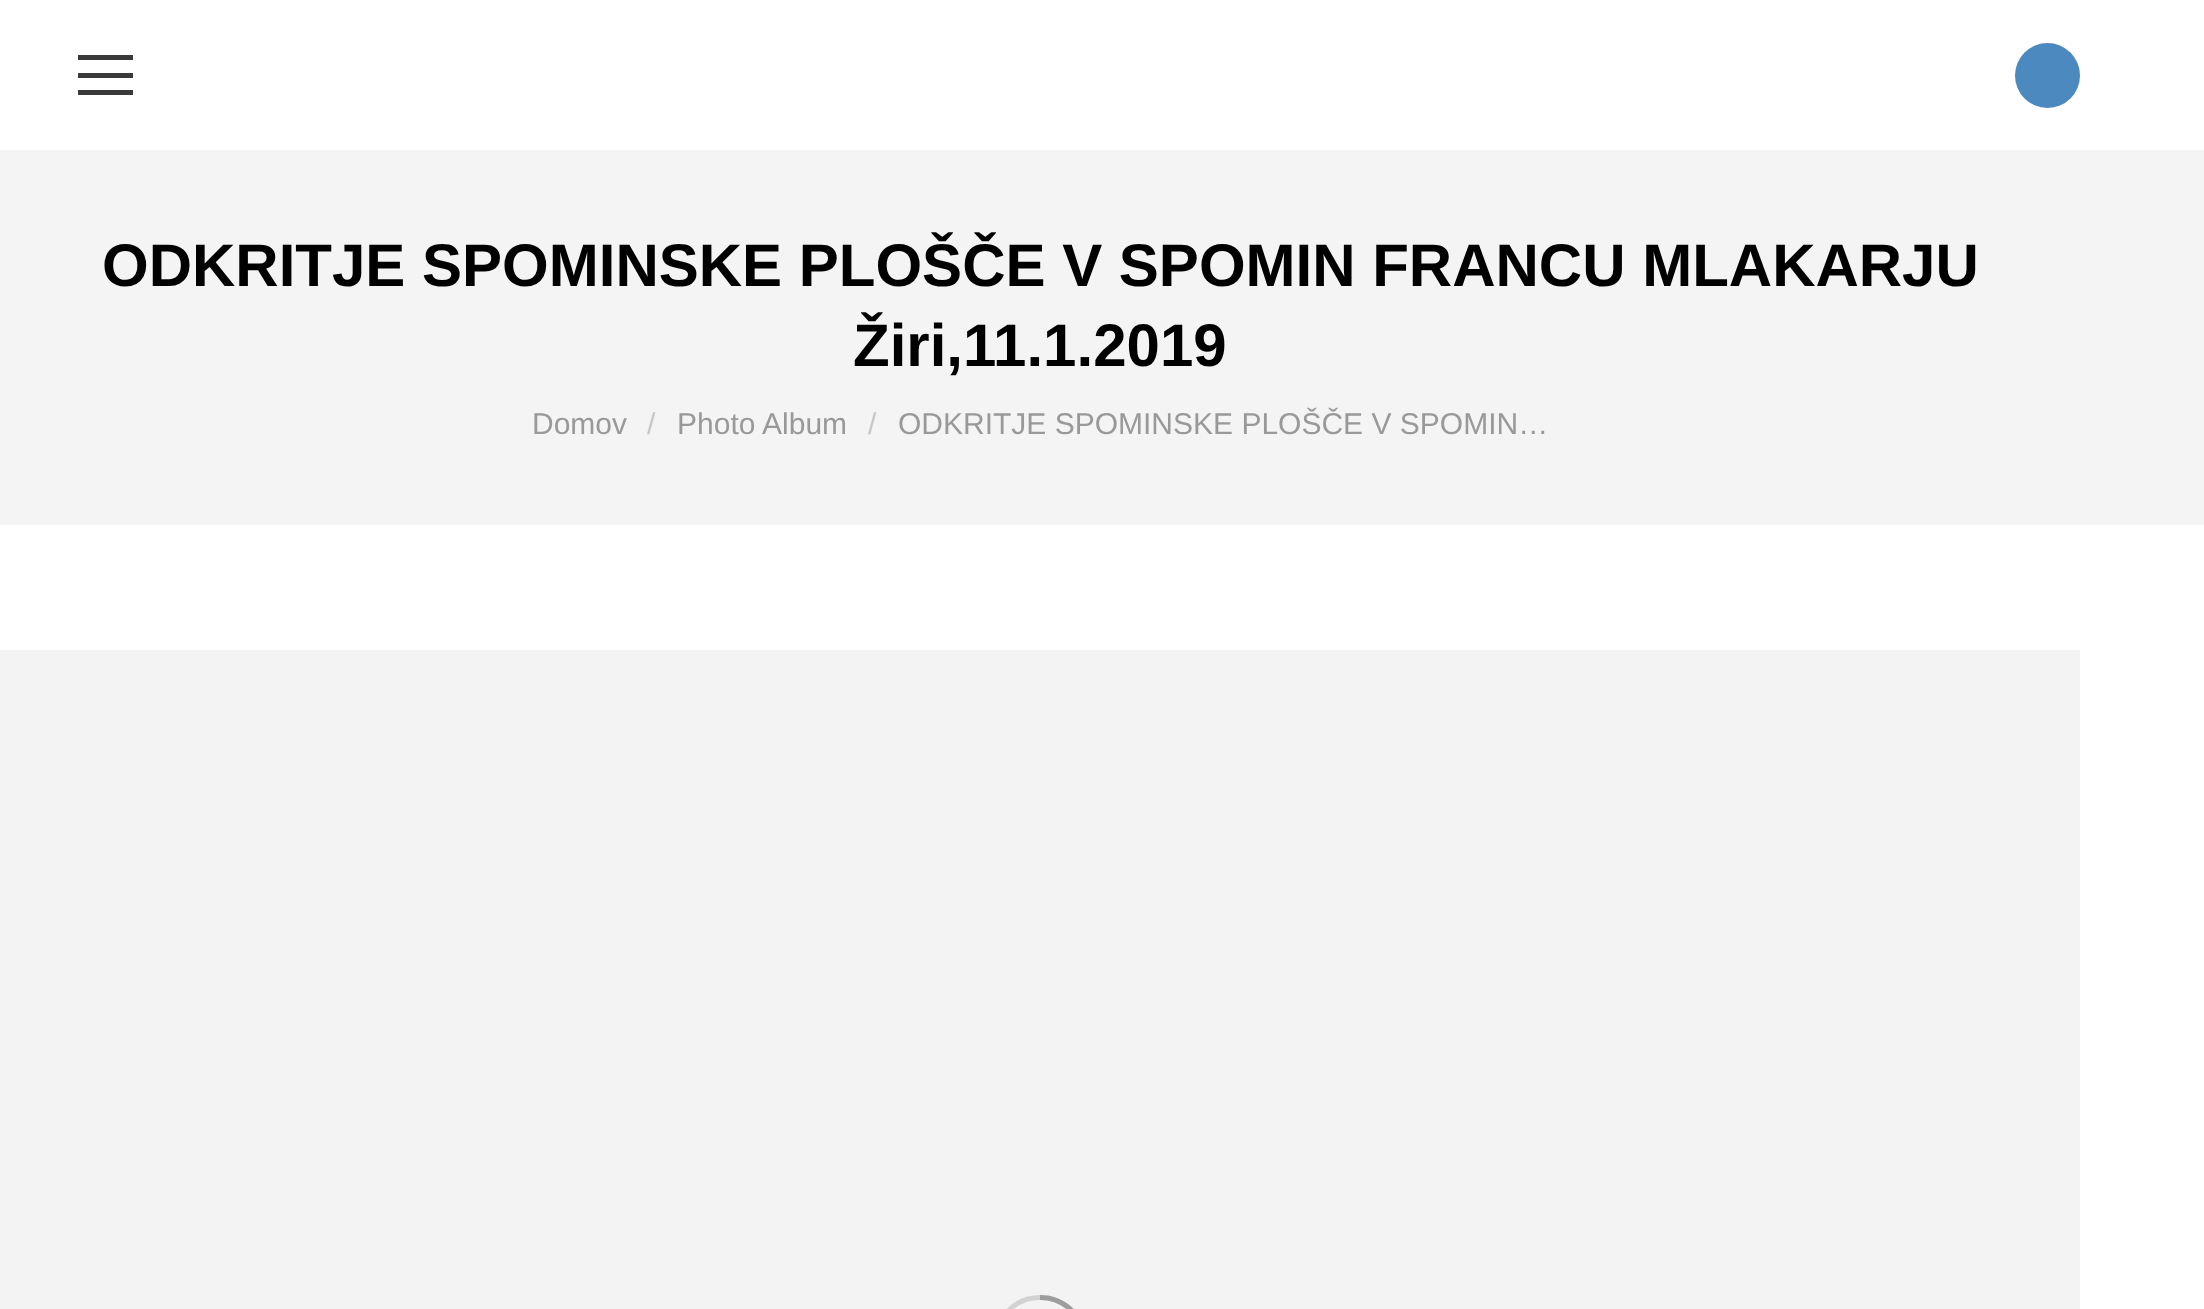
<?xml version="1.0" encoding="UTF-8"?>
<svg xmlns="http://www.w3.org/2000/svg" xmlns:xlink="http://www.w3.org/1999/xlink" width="2204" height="1309">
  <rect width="100%" height="100%" fill="#ffffff" />
  <rect x="78" y="55" width="55" height="5" fill="#3a3a3a" />
  <rect x="78" y="73" width="55" height="5" fill="#3a3a3a" />
  <rect x="78" y="90" width="55" height="5" fill="#3a3a3a" />
  <circle cx="2047.5" cy="75.5" r="32.5" fill="#4c89bf" />
  <rect y="150" width="2204" height="375" fill="#f4f4f4" />
  <rect y="650" width="2080" height="659" fill="#f3f3f3" />
  <circle cx="1040" cy="1342.5" r="45" fill="none" stroke="#d2d2d2" stroke-width="5" />
  <path d="M 1085 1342.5 c 0 -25 -20 -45 -45 -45" fill="none" stroke="#000000" stroke-opacity="0.25" stroke-width="5" />
  <text x="102" y="286" style="font-family: Liberation Sans; font-size: 60px; font-weight: bold; fill: #000000">ODKRITJE SPOMINSKE PLOŠČE V SPOMIN FRANCU MLAKARJU</text>
  <text x="853" y="366" style="font-family: Liberation Sans; font-size: 60px; font-weight: bold; fill: #000000">Žiri,11.1.2019</text>
  <text x="532" y="434" style="font-family: Liberation Sans; font-size: 30px; fill: #999999">Domov</text>
  <text x="647" y="434" style="font-family: Liberation Sans; font-size: 30px; fill: #c7c7c7">/</text>
  <text x="677" y="434" style="font-family: Liberation Sans; font-size: 30px; fill: #999999">Photo Album</text>
  <text x="868" y="434" style="font-family: Liberation Sans; font-size: 30px; fill: #c7c7c7">/</text>
  <text x="898" y="434" style="font-family: Liberation Sans; font-size: 30px; fill: #999999">ODKRITJE SPOMINSKE PLOŠČE V SPOMIN…</text>
</svg>
